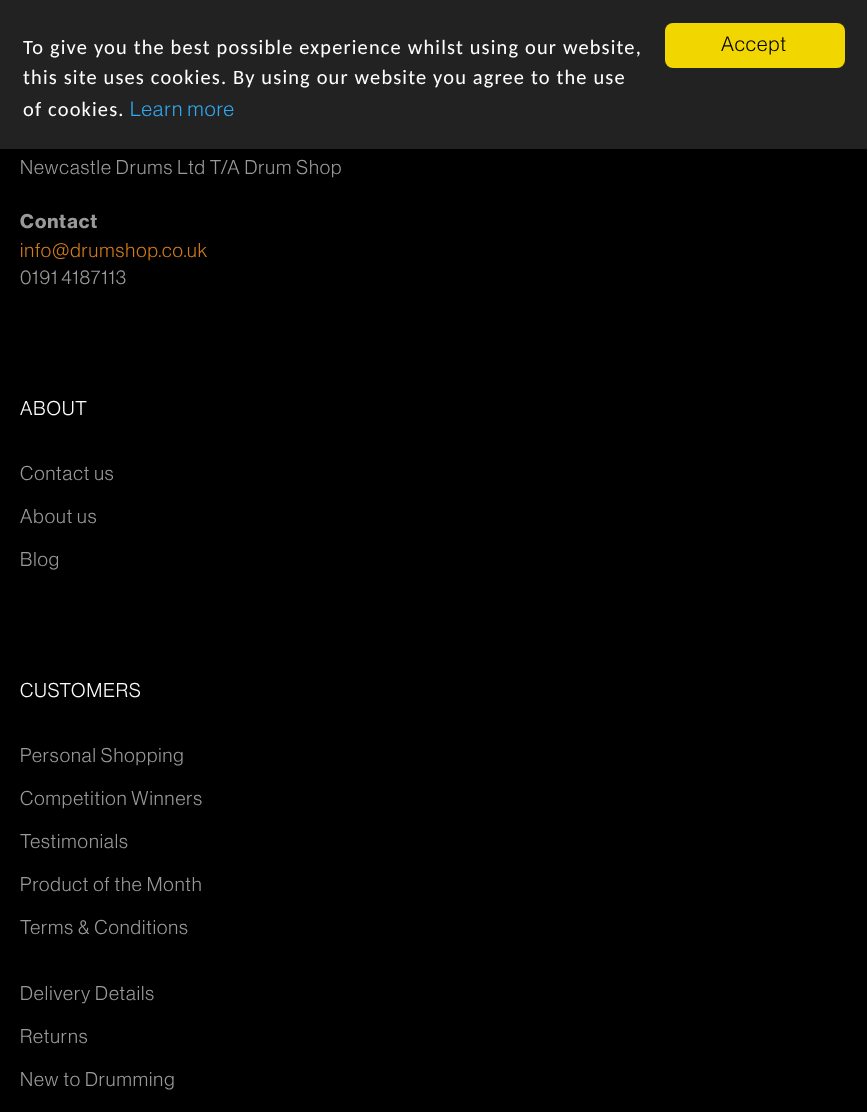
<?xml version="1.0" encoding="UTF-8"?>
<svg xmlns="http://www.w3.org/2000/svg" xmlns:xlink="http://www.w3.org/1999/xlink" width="867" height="1112">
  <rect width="100%" height="100%" fill="#000000" />
  <rect width="867" height="149" fill="#222222" />
  <rect x="665" y="23" width="180" height="45" rx="8" fill="#f1d600" />
  <text x="23" y="54" style="font-family: Carlito; font-size: 20.4px; letter-spacing: 1.17px; fill: #ffffff">To give you the best possible experience whilst using our website,</text>
  <text x="23" y="84" style="font-family: Carlito; font-size: 20.4px; letter-spacing: 1.17px; fill: #ffffff">this site uses cookies. By using our website you agree to the use</text>
  <text x="23" y="116" style="font-family: Carlito; font-size: 20.4px; letter-spacing: 1.17px; fill: #ffffff">of cookies.</text>
  <text x="130" y="116" style="font-family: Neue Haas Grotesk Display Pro; font-size: 20.4px; letter-spacing: 1.17px; fill: #31a8f0">Learn more</text>
  <text x="721" y="51" style="font-family: Neue Haas Grotesk Display Pro; font-size: 20.4px; letter-spacing: 1.17px; fill: #000000">Accept</text>
  <text x="20" y="174" style="font-family: Neue Haas Grotesk Display Pro; font-size: 19.5px; letter-spacing: 1px; fill: #999999">Newcastle Drums Ltd T/A Drum Shop</text>
  <text x="20" y="228" style="font-family: Neue Haas Grotesk Display Pro; font-size: 19.5px; font-weight: bold; letter-spacing: 1px; fill: #999999">Contact</text>
  <text x="20" y="257" style="font-family: Neue Haas Grotesk Display Pro; font-size: 19.5px; letter-spacing: 1px; fill: #d27a1a">info@drumshop.co.uk</text>
  <text x="20" y="284" word-spacing="-1" style="font-family: Neue Haas Grotesk Display Pro; font-size: 19.5px; letter-spacing: 1px; fill: #999999">0191 4187113</text>
  <text x="20" y="415" style="font-family: Neue Haas Grotesk Display Pro; font-size: 19.5px; letter-spacing: 1px; fill: #ffffff">ABOUT</text>
  <text x="20" y="480" style="font-family: Neue Haas Grotesk Display Pro; font-size: 19.5px; letter-spacing: 1px; fill: #999999">Contact us</text>
  <text x="20" y="523" style="font-family: Neue Haas Grotesk Display Pro; font-size: 19.5px; letter-spacing: 1px; fill: #999999">About us</text>
  <text x="20" y="566" style="font-family: Neue Haas Grotesk Display Pro; font-size: 19.5px; letter-spacing: 1px; fill: #999999">Blog</text>
  <text x="20" y="697" style="font-family: Neue Haas Grotesk Display Pro; font-size: 19.5px; letter-spacing: 1px; fill: #ffffff">CUSTOMERS</text>
  <text x="20" y="762" style="font-family: Neue Haas Grotesk Display Pro; font-size: 19.5px; letter-spacing: 1px; fill: #999999">Personal Shopping</text>
  <text x="20" y="805" style="font-family: Neue Haas Grotesk Display Pro; font-size: 19.5px; letter-spacing: 1px; fill: #999999">Competition Winners</text>
  <text x="20" y="848" style="font-family: Neue Haas Grotesk Display Pro; font-size: 19.5px; letter-spacing: 1px; fill: #999999">Testimonials</text>
  <text x="20" y="891" style="font-family: Neue Haas Grotesk Display Pro; font-size: 19.5px; letter-spacing: 1px; fill: #999999">Product of the Month</text>
  <text x="20" y="934" style="font-family: Neue Haas Grotesk Display Pro; font-size: 19.5px; letter-spacing: 1px; fill: #999999">Terms &amp; Conditions</text>
  <text x="20" y="1000" style="font-family: Neue Haas Grotesk Display Pro; font-size: 19.5px; letter-spacing: 1px; fill: #999999">Delivery Details</text>
  <text x="20" y="1043" style="font-family: Neue Haas Grotesk Display Pro; font-size: 19.5px; letter-spacing: 1px; fill: #999999">Returns</text>
  <text x="20" y="1086" style="font-family: Neue Haas Grotesk Display Pro; font-size: 19.5px; letter-spacing: 1px; fill: #999999">New to Drumming</text>
</svg>
